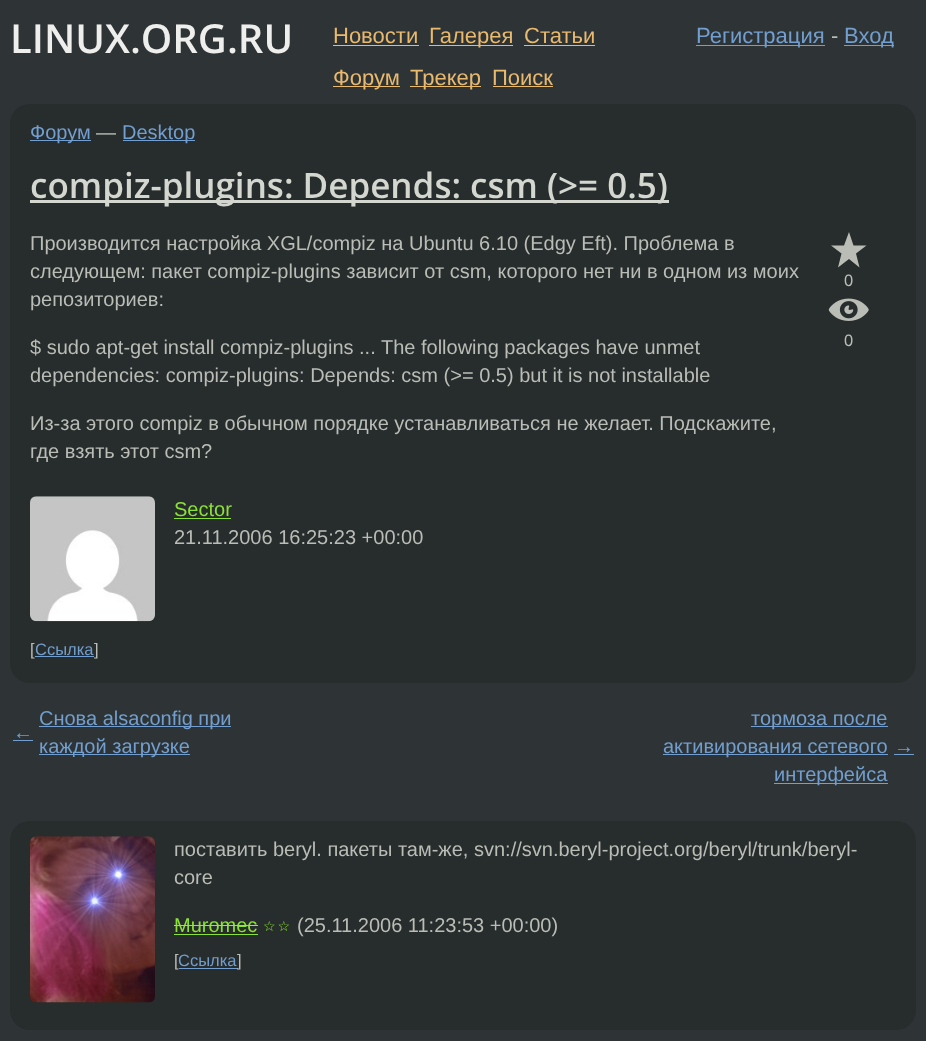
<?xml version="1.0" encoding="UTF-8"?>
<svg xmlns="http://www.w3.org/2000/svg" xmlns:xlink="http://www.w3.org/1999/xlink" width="926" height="1041">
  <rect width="100%" height="100%" fill="#2e3436" />
  <rect x="333" y="45" width="86" height="1" fill="#e9b96e" />
  <rect x="429" y="45" width="84" height="1" fill="#e9b96e" />
  <rect x="524" y="45" width="71" height="1" fill="#e9b96e" />
  <rect x="333" y="86" width="67" height="1" fill="#e9b96e" />
  <rect x="410" y="86" width="71" height="1" fill="#e9b96e" />
  <rect x="493" y="86" width="60" height="1" fill="#e9b96e" />
  <rect x="696" y="45" width="129" height="1" fill="#729fcf" />
  <rect x="844" y="45" width="50" height="1" fill="#729fcf" />
  <rect x="10" y="104" width="906" height="579" rx="20" fill="#272c2d" />
  <rect x="30" y="140" width="61" height="1" fill="#729fcf" />
  <rect x="123" y="140" width="72" height="1" fill="#729fcf" />
  <rect x="30" y="200" width="639" height="3" fill="#d3d7cf" />
  <path d="M 849 232 l 4.5 13.5 h 13 l -10.5 8 l 3.5 14 l -10.5 -8.5 l -11 8.5 l 3.5 -14 l -10.5 -8 h 13 z" fill="#babdb6" />
  <image x="828" y="298" width="41" height="23" xlink:href="image1.png" />
  <image x="30" y="496" width="125" height="126" xlink:href="image2.png" />
  <rect x="174" y="518" width="57" height="1" fill="#8ae234" />
  <rect x="35" y="656" width="59" height="1" fill="#729fcf" />
  <rect x="13" y="740" width="20" height="1" fill="#729fcf" />
  <rect x="39" y="726" width="192" height="1" fill="#729fcf" />
  <rect x="39" y="754" width="151" height="1" fill="#729fcf" />
  <rect x="751" y="726" width="137" height="1" fill="#729fcf" />
  <rect x="663" y="754" width="225" height="1" fill="#729fcf" />
  <rect x="774" y="783" width="114" height="1" fill="#729fcf" />
  <rect x="894" y="754" width="20" height="1" fill="#729fcf" />
  <rect x="10" y="821" width="906" height="209" rx="20" fill="#272c2d" />
  <image x="30" y="836" width="125" height="167" xlink:href="image3.png" />
  <rect x="174" y="934" width="84" height="1" fill="#8ae234" />
  <rect x="179" y="968" width="59" height="1" fill="#729fcf" />
  <text x="10" y="53" style="font-family: Open Sans; font-size: 40px; font-weight: 600; fill: #eeeeec">LINUX.ORG.RU</text>
  <text x="333" y="43" style="font-family: Liberation Sans; font-size: 22px; fill: #e9b96e">Новости</text>
  <text x="429" y="43" style="font-family: Liberation Sans; font-size: 22px; fill: #e9b96e">Галерея</text>
  <text x="524" y="43" style="font-family: Liberation Sans; font-size: 22px; fill: #e9b96e">Статьи</text>
  <text x="333" y="85" style="font-family: Liberation Sans; font-size: 22px; fill: #e9b96e">Форум</text>
  <text x="410" y="85" style="font-family: Liberation Sans; font-size: 22px; fill: #e9b96e">Трекер</text>
  <text x="492" y="85" style="font-family: Liberation Sans; font-size: 22px; fill: #e9b96e">Поиск</text>
  <text x="696" y="43" style="font-family: Liberation Sans; font-size: 22px; fill: #729fcf">Регистрация</text>
  <text x="831" y="43" style="font-family: Liberation Sans; font-size: 22px; fill: #babdb6">-</text>
  <text x="844" y="43" style="font-family: Liberation Sans; font-size: 22px; fill: #729fcf">Вход</text>
  <text x="30" y="139" style="font-family: Liberation Sans; font-size: 20px; fill: #729fcf">Форум</text>
  <text x="96" y="139" style="font-family: Liberation Sans; font-size: 20px; fill: #babdb6">—</text>
  <text x="122" y="139" style="font-family: Liberation Sans; font-size: 20px; fill: #729fcf">Desktop</text>
  <text x="30" y="198" style="font-family: Open Sans; font-size: 35px; font-weight: 600; fill: #d3d7cf">compiz-plugins: Depends: csm (&gt;= 0.5)</text>
  <text x="30" y="250" style="font-family: Liberation Sans; font-size: 20px; fill: #babdb6">Производится настройка XGL/compiz на Ubuntu 6.10 (Edgy Eft). Проблема в</text>
  <text x="30" y="278" style="font-family: Liberation Sans; font-size: 20px; fill: #babdb6">следующем: пакет compiz-plugins зависит от csm, которого нет ни в одном из моих</text>
  <text x="30" y="306" style="font-family: Liberation Sans; font-size: 20px; fill: #babdb6">репозиториев:</text>
  <text x="30" y="354" style="font-family: Liberation Sans; font-size: 20px; fill: #babdb6">$ sudo apt-get install compiz-plugins ... The following packages have unmet</text>
  <text x="30" y="382" style="font-family: Liberation Sans; font-size: 20px; fill: #babdb6">dependencies: compiz-plugins: Depends: csm (&gt;= 0.5) but it is not installable</text>
  <text x="30" y="430" style="font-family: Liberation Sans; font-size: 20px; fill: #babdb6">Из-за этого compiz в обычном порядке устанавливаться не желает. Подскажите,</text>
  <text x="30" y="458" style="font-family: Liberation Sans; font-size: 20px; fill: #babdb6">где взять этот csm?</text>
  <text x="844" y="286" style="font-family: Liberation Sans; font-size: 16.5px; fill: #babdb6">0</text>
  <text x="844" y="346" style="font-family: Liberation Sans; font-size: 16.5px; fill: #babdb6">0</text>
  <text x="174" y="516" style="font-family: Liberation Sans; font-size: 20px; fill: #8ae234">Sector</text>
  <text x="174" y="544" style="font-family: Liberation Sans; font-size: 20px; fill: #babdb6">21.11.2006 16:25:23 +00:00</text>
  <text x="30" y="655" style="font-family: Liberation Sans; font-size: 16.5px; fill: #babdb6">[</text>
  <text x="35" y="655" style="font-family: Liberation Sans; font-size: 16.5px; fill: #729fcf">Ссылка</text>
  <text x="94" y="655" style="font-family: Liberation Sans; font-size: 16.5px; fill: #babdb6">]</text>
  <text x="13" y="739" style="font-family: Liberation Sans; font-size: 20px; fill: #729fcf">←</text>
  <text x="39" y="725" style="font-family: Liberation Sans; font-size: 20px; fill: #729fcf">Снова alsaconfig при</text>
  <text x="39" y="753" style="font-family: Liberation Sans; font-size: 20px; fill: #729fcf">каждой загрузке</text>
  <text x="751" y="725" style="font-family: Liberation Sans; font-size: 20px; fill: #729fcf">тормоза после</text>
  <text x="663" y="753" style="font-family: Liberation Sans; font-size: 20px; fill: #729fcf">активирования сетевого</text>
  <text x="774" y="781" style="font-family: Liberation Sans; font-size: 20px; fill: #729fcf">интерфейса</text>
  <text x="894" y="753" style="font-family: Liberation Sans; font-size: 20px; fill: #729fcf">→</text>
  <text x="174" y="856" style="font-family: Liberation Sans; font-size: 20px; fill: #babdb6">поставить beryl. пакеты там-же, svn://svn.beryl-project.org/beryl/trunk/beryl-</text>
  <text x="174" y="884" style="font-family: Liberation Sans; font-size: 20px; fill: #babdb6">core</text>
  <text x="174" y="932" style="font-family: Liberation Sans; font-size: 20px; fill: #8ae234">Muromec</text>
  <rect x="174" y="925" width="84" height="1" fill="#babdb6" />
  <text x="263" y="931" style="font-family: DejaVu Sans; font-size: 14px; letter-spacing: 2px; fill: #8ae234">☆☆</text>
  <text x="297" y="932" style="font-family: Liberation Sans; font-size: 20px; fill: #babdb6">(25.11.2006 11:23:53 +00:00)</text>
  <text x="174" y="966" style="font-family: Liberation Sans; font-size: 16.5px; fill: #babdb6">[</text>
  <text x="178" y="966" style="font-family: Liberation Sans; font-size: 16.5px; fill: #729fcf">Ссылка</text>
  <text x="237" y="966" style="font-family: Liberation Sans; font-size: 16.5px; fill: #babdb6">]</text>
</svg>
